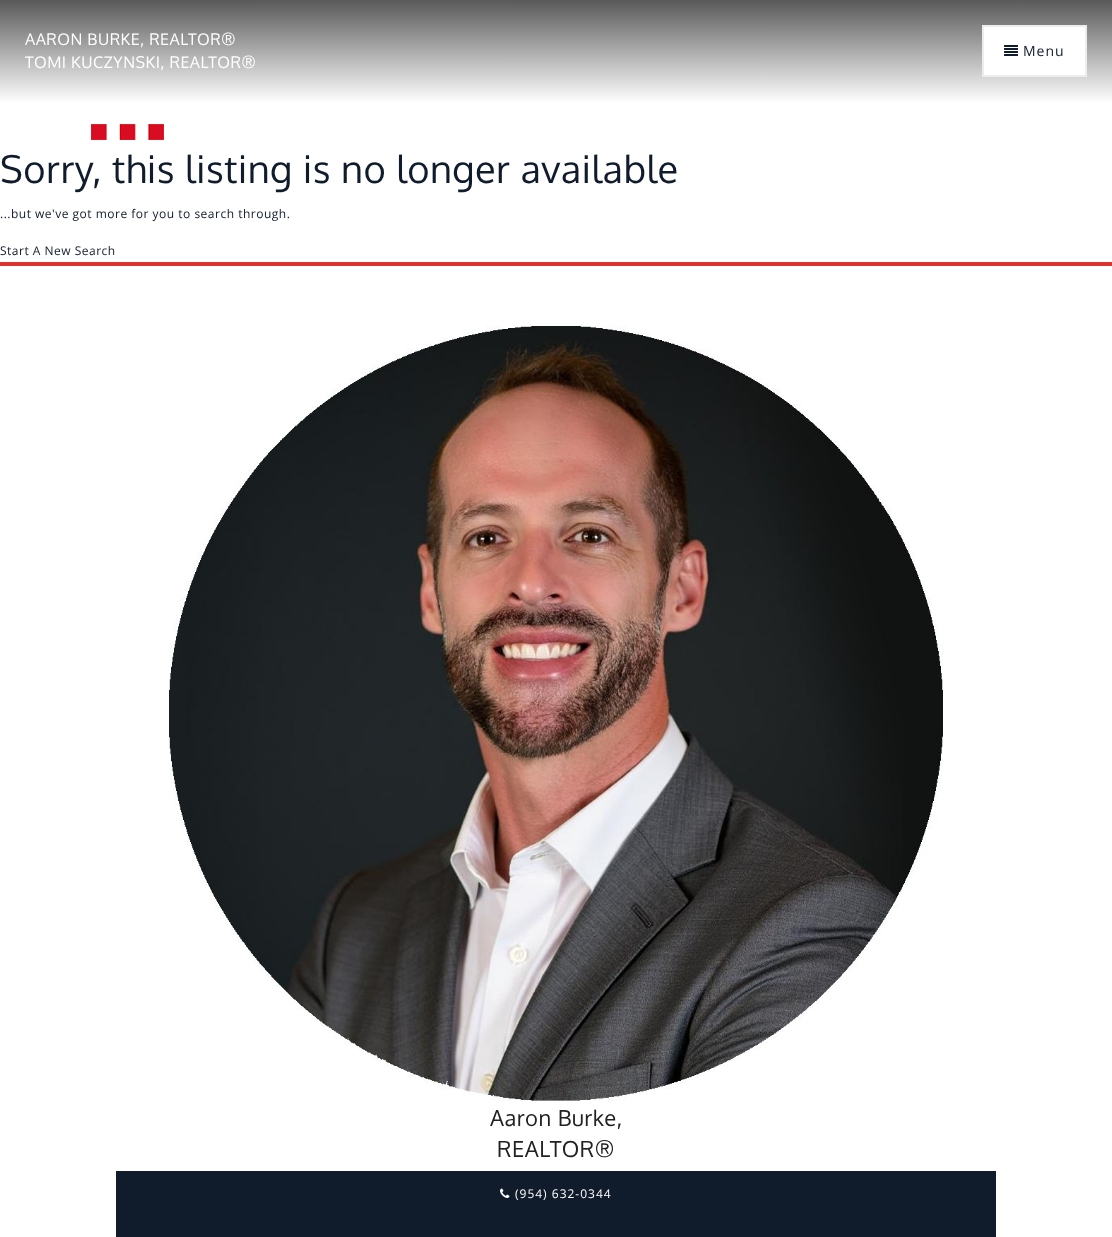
<?xml version="1.0" encoding="UTF-8"?>
<svg xmlns="http://www.w3.org/2000/svg" xmlns:xlink="http://www.w3.org/1999/xlink" width="1112" height="1237">
  <defs>
    <linearGradient id="g1" gradientUnits="userSpaceOnUse" x1="556" y1="0" x2="556" y2="103"><stop offset="0" stop-color="#595959" /><stop offset="1" stop-color="#ffffff" /></linearGradient>
  </defs>
  <rect width="100%" height="100%" fill="#ffffff" />
  <rect width="1112" height="101" fill="url(#g1)" />
  <rect x="983" y="26" width="103" height="50" fill="#ffffff" stroke="#ededed" stroke-width="2" />
  <image x="1004" y="45" width="14" height="11" xlink:href="image1.png" />
  <image x="91" y="124" width="73" height="16" xlink:href="image2.png" />
  <rect y="262" width="1112" height="4" fill="#dd3333" />
  <image x="169" y="326" width="774" height="775" xlink:href="image3.png" />
  <rect x="116" y="1171" width="880" height="66" fill="#101b2c" />
  <image x="500" y="1188" width="10" height="10" xlink:href="image4.png" />
  <text x="25" y="45" style="font-family: Oxygen; font-size: 16px; letter-spacing: 0.5px; fill: #ffffff">AARON BURKE, REALTOR®</text>
  <text x="25" y="68" style="font-family: Oxygen; font-size: 16px; letter-spacing: 0.5px; fill: #ffffff">TOMI KUCZYNSKI, REALTOR®</text>
  <text x="1023" y="56" style="font-family: Open Sans; font-size: 14px; letter-spacing: 1px; fill: #101b2c">Menu</text>
  <text x="0" y="183" style="font-family: Oxygen; font-size: 38px; letter-spacing: 0.5px; fill: #101b2c">Sorry, this listing is no longer available</text>
  <text x="0" y="218" style="font-family: Open Sans; font-size: 12px; letter-spacing: 0.5px; fill: #101b2c">...but we've got more for you to search through.</text>
  <text x="0" y="255" style="font-family: Open Sans; font-size: 12px; letter-spacing: 0.5px; fill: #101b2c">Start A New Search</text>
  <text x="490" y="1126" style="font-family: Oxygen; font-size: 22px; letter-spacing: 0.5px; fill: #222222">Aaron Burke,</text>
  <text x="497" y="1157" style="font-family: Oxygen; font-size: 22px; letter-spacing: 0.5px; fill: #222222">REALTOR®</text>
  <text x="515" y="1198" style="font-family: Open Sans; font-size: 12px; letter-spacing: 1px; fill: #ffffff">(954) 632-0344</text>
</svg>
